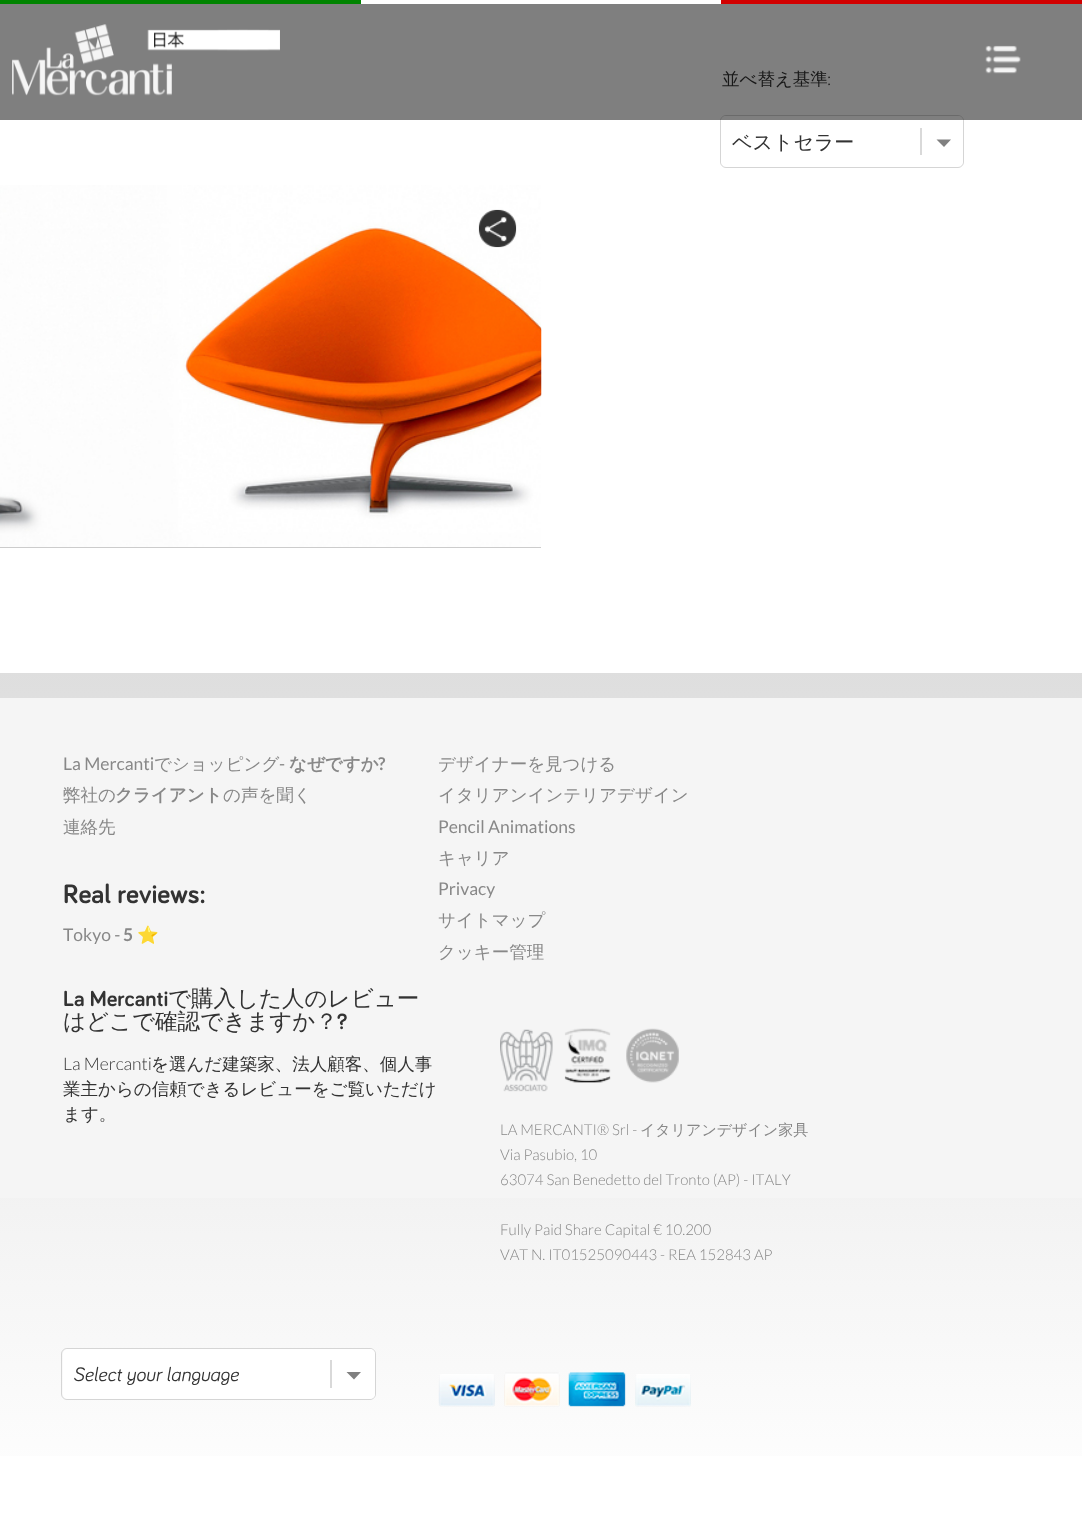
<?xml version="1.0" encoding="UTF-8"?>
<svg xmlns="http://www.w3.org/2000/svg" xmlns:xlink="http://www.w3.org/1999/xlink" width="1082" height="1520">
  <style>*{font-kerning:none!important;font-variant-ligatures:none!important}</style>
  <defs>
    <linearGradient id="g1" gradientUnits="userSpaceOnUse" x1="541" y1="-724" x2="541" y2="1520"><stop offset="0" stop-color="#a8a8a8" /><stop offset="1" stop-color="#ffffff" /></linearGradient>
  </defs>
  <rect width="100%" height="100%" fill="#ffffff" />
  <rect y="673" width="1082" height="783" fill="url(#g1)" />
  <rect width="361" height="4" fill="#008400" />
  <rect x="721" width="361" height="4" fill="#d20000" />
  <rect x="720.5" y="115.5" width="243" height="52" rx="5.5" fill="none" stroke="#d5d5d5" />
  <rect x="721" y="116" width="242" height="50" rx="5" fill="#ffffff" />
  <rect x="920" y="128" width="2" height="27" fill="#d9d9d9" />
  <path d="M 936.5 139.5 h 14.5 l -7 7.5 z" fill="#808080" fill-rule="evenodd" />
  <rect y="547" width="541" height="1" fill="#cccccc" />
  <image x="0" y="185" width="542" height="362" xlink:href="image3.png" />
  <image x="478" y="209" width="39" height="39" xlink:href="image4.png" />
  <rect y="698" width="1082" height="500" fill="#f5f5f5" />
  <image x="500" y="1029" width="53" height="63" xlink:href="image5.png" />
  <image x="564" y="1028" width="47" height="55" xlink:href="image6.png" />
  <image x="626" y="1028" width="53" height="55" xlink:href="image7.png" />
  <rect x="61.5" y="1348.5" width="314" height="51" rx="5.5" fill="none" stroke="#d5d5d5" />
  <rect x="63" y="1349" width="312" height="50" rx="5" fill="#ffffff" />
  <rect x="330" y="1360" width="2" height="28" fill="#d9d9d9" />
  <path d="M 346.5 1372 h 14.5 l -7 7.5 z" fill="#808080" fill-rule="evenodd" />
  <image x="438" y="1374" width="57" height="33" xlink:href="image8.png" />
  <image x="504" y="1372" width="56" height="35" xlink:href="image9.png" />
  <image x="568" y="1372" width="58" height="35" xlink:href="image10.png" />
  <image x="635" y="1374" width="56" height="33" xlink:href="image11.png" />
  <text x="722" y="85" style="font-family: WenQuanYi Zen Hei; font-size: 17.5px; font-weight: 500; fill: #333333">並べ替え基準</text>
  <text x="827" y="85" style="font-family: Lato; font-size: 17.5px; font-weight: 300; fill: #333333">:</text>
  <rect y="4" width="1082" height="116" fill="#000000" fill-opacity="0.5" />
  <image x="985" y="45" width="36" height="29" xlink:href="image2.png" />
  <image x="12" y="24" width="268" height="72" xlink:href="image1.png" />
  <text x="732" y="149" style="font-family: WenQuanYi Zen Hei; font-size: 20px; font-weight: 500; fill: #333333">ベストセラー</text>
  <text x="63" y="770" style="font-family: Lato; font-size: 17.5px; fill: #888888">La Mercanti</text>
  <text x="154" y="770" style="font-family: WenQuanYi Zen Hei; font-size: 17.5px; font-weight: 500; fill: #888888">でショッピング</text>
  <text x="279" y="770" style="font-family: Lato; font-size: 17.5px; fill: #888888">-</text>
  <text x="289" y="770" style="font-family: WenQuanYi Zen Hei; font-size: 17.5px; font-weight: bold; fill: #888888">なぜですか</text>
  <text x="378" y="770" style="font-family: Lato; font-size: 17.5px; font-weight: bold; fill: #888888">?</text>
  <text x="63" y="801" style="font-family: WenQuanYi Zen Hei; font-size: 17.5px; font-weight: 500; fill: #888888">弊社の</text>
  <text x="115" y="801" style="font-family: WenQuanYi Zen Hei; font-size: 17.5px; font-weight: bold; fill: #888888">クライアント</text>
  <text x="223" y="801" style="font-family: WenQuanYi Zen Hei; font-size: 17.5px; font-weight: 500; fill: #888888">の声を聞く</text>
  <text x="63" y="833" style="font-family: WenQuanYi Zen Hei; font-size: 17.5px; font-weight: 500; fill: #888888">連絡先</text>
  <text x="63" y="903" style="font-family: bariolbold; font-size: 27.5px; font-weight: bold; fill: #333333">Real reviews:</text>
  <text x="63" y="941" style="font-family: Lato; font-size: 17.5px; fill: #888888">Tokyo -</text>
  <text x="123" y="941" style="font-family: Lato; font-size: 17.5px; font-weight: bold; fill: #888888">5</text>
  <text x="137" y="941" style="font-family: Noto Color Emoji; font-size: 17.5px; fill: #888888">⭐</text>
  <text x="63" y="1006" style="font-family: bariolbold; font-size: 22.5px; font-weight: bold; fill: #333333">La Mercanti</text>
  <text x="168" y="1006" style="font-family: WenQuanYi Zen Hei; font-size: 22.5px; font-weight: 500; fill: #333333">で購入した人のレビュー</text>
  <text x="63" y="1029" style="font-family: WenQuanYi Zen Hei; font-size: 22.5px; font-weight: 500; fill: #333333">はどこで確認できますか？</text>
  <text x="337" y="1029" style="font-family: bariolbold; font-size: 22.5px; font-weight: bold; fill: #333333">?</text>
  <text x="63" y="1070" style="font-family: Lato; font-size: 17.5px; font-weight: 300; fill: #333333">La Mercanti</text>
  <text x="151" y="1070" style="font-family: WenQuanYi Zen Hei; font-size: 17.5px; font-weight: 500; fill: #333333">を選んだ建築家、法人顧客、個人事</text>
  <text x="63" y="1095" style="font-family: WenQuanYi Zen Hei; font-size: 17.5px; font-weight: 500; fill: #333333">業主からの信頼できるレビューをご覧いただけ</text>
  <text x="63" y="1120" style="font-family: WenQuanYi Zen Hei; font-size: 17.5px; font-weight: 500; fill: #333333">ます。</text>
  <text x="438" y="770" style="font-family: WenQuanYi Zen Hei; font-size: 17.5px; font-weight: 500; fill: #888888">デザイナーを見つける</text>
  <text x="438" y="801" style="font-family: WenQuanYi Zen Hei; font-size: 17.5px; font-weight: 500; fill: #888888">イタリアンインテリアデザイン</text>
  <text x="438" y="833" style="font-family: Lato; font-size: 17.5px; fill: #888888">Pencil Animations</text>
  <text x="438" y="864" style="font-family: WenQuanYi Zen Hei; font-size: 17.5px; font-weight: 500; fill: #888888">キャリア</text>
  <text x="438" y="895" style="font-family: Lato; font-size: 17.5px; fill: #888888">Privacy</text>
  <text x="438" y="926" style="font-family: WenQuanYi Zen Hei; font-size: 17.5px; font-weight: 500; fill: #888888">サイトマップ</text>
  <text x="438" y="958" style="font-family: WenQuanYi Zen Hei; font-size: 17.5px; font-weight: 500; fill: #888888">クッキー管理</text>
  <text x="500" y="1135" style="font-family: Lato; font-size: 15px; font-weight: 300; fill: #888888">LA MERCANTI® Srl -</text>
  <text x="640" y="1135" style="font-family: WenQuanYi Zen Hei; font-size: 15px; font-weight: 500; fill: #888888">イタリアンデザイン家具</text>
  <text x="500" y="1160" style="font-family: Lato; font-size: 15px; font-weight: 300; fill: #888888">Via Pasubio, 10</text>
  <text x="500" y="1185" style="font-family: Lato; font-size: 15px; font-weight: 300; fill: #888888">63074 San Benedetto del Tronto (AP) - ITALY</text>
  <text x="500" y="1235" style="font-family: Lato; font-size: 15px; font-weight: 300; fill: #888888">Fully Paid Share Capital € 10.200</text>
  <text x="500" y="1260" style="font-family: Lato; font-size: 15px; font-weight: 300; fill: #888888">VAT N. IT01525090443 - REA 152843 AP</text>
  <text x="73" y="1381" style="font-family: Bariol; font-size: 20px; font-style: italic; fill: #333333">Select your language</text>
</svg>
